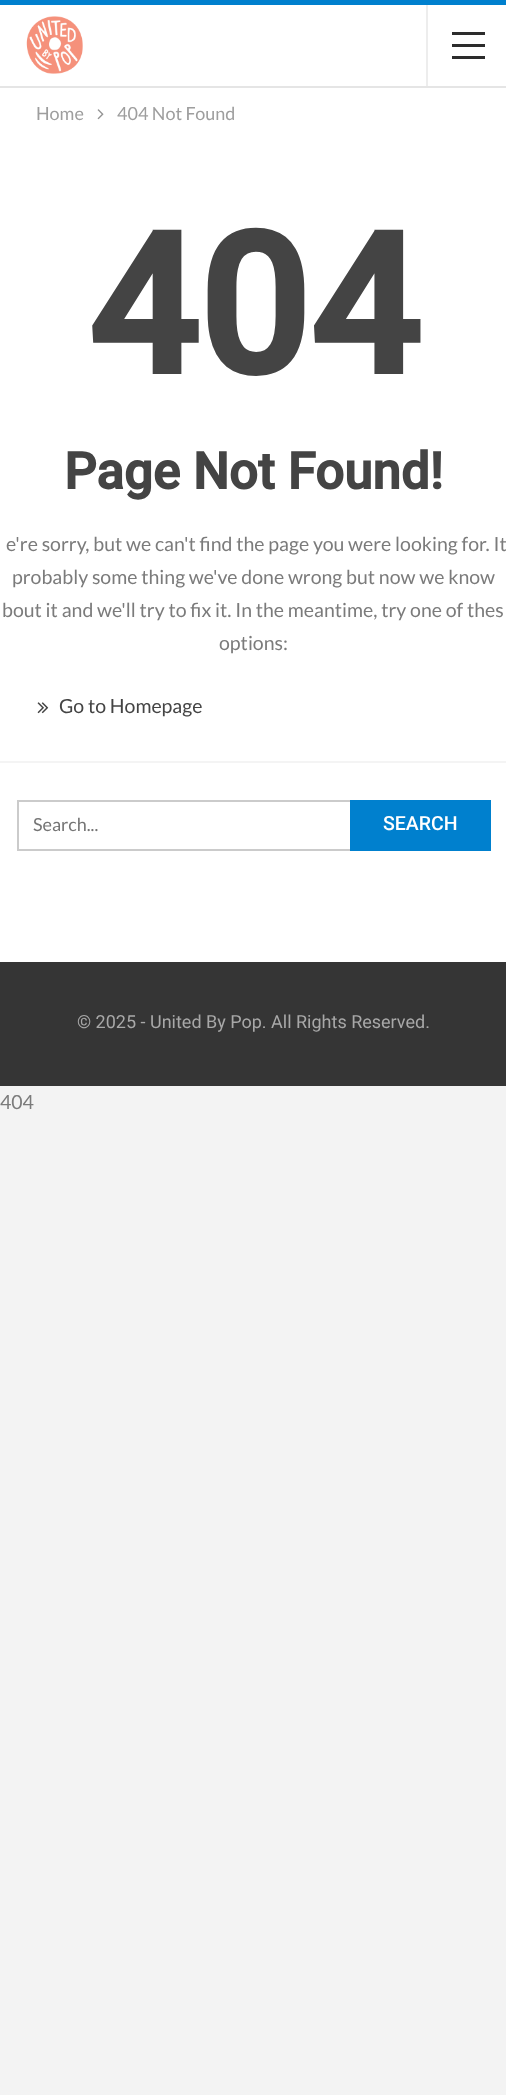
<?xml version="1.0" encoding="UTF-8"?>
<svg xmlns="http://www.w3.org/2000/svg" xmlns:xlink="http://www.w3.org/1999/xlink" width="506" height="2095">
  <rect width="100%" height="100%" fill="#f3f3f3" />
  <rect width="506" height="5" fill="#0080ce" />
  <rect y="5" width="506" height="957" fill="#ffffff" />
  <rect y="86" width="506" height="2" fill="#e5e5e5" />
  <image x="26" y="16" width="57" height="58" xlink:href="image1.png" />
  <rect x="426" y="5" width="2" height="81" fill="#ededed" />
  <rect x="452" y="44" width="33" height="3" fill="#2c2c2c" />
  <rect x="452" y="32" width="33" height="3" fill="#2c2c2c" />
  <rect x="452" y="56" width="33" height="3" fill="#2c2c2c" />
  <image x="97" y="109" width="7" height="11" xlink:href="image2.png" />
  <image x="37" y="702" width="12" height="12" xlink:href="image3.png" />
  <rect y="761" width="506" height="2" fill="#f4f4f4" />
  <rect x="18" y="801" width="472" height="49" fill="none" stroke="#cbcbcb" stroke-width="2" />
  <rect x="350" y="800" width="141" height="51" fill="#0080ce" />
  <rect y="962" width="506" height="124" fill="#353535" />
  <text x="36" y="120" style="font-family: Lato; font-size: 18px; fill: #9e9e9e">Home</text>
  <text x="117" y="120" style="font-family: Lato; font-size: 18px; fill: #9e9e9e">404 Not Found</text>
  <text x="87" y="374" style="font-family: Roboto; font-size: 195px; font-weight: bold; fill: #444444">404</text>
  <text x="64" y="489" style="font-family: Roboto; font-size: 51px; font-weight: bold; fill: #444444">Page Not Found!</text>
  <text x="6" y="551" style="font-family: Lato; font-size: 19.5px; fill: #7b7b7b">e're sorry, but we can't find the page you were looking for. It</text>
  <text x="12" y="584" style="font-family: Lato; font-size: 19.5px; fill: #7b7b7b">probably some thing we've done wrong but now we know</text>
  <text x="2" y="617" style="font-family: Lato; font-size: 19.5px; fill: #7b7b7b">bout it and we'll try to fix it. In the meantime, try one of thes</text>
  <text x="219" y="650" style="font-family: Lato; font-size: 19.5px; fill: #7b7b7b">options:</text>
  <text x="59" y="713" style="font-family: Lato; font-size: 19.5px; fill: #444444">Go to Homepage</text>
  <text x="33" y="831" style="font-family: Lato; font-size: 18px; fill: #757575">Search...</text>
  <text x="383" y="830" style="font-family: Roboto; font-size: 19.5px; font-weight: 500; fill: #ffffff">SEARCH</text>
  <text x="77" y="1028" style="font-family: Roboto; font-size: 18px; fill: #a8a8a8">© 2025 - United By Pop. All Rights Reserved.</text>
  <text x="0" y="1109" style="font-family: Lato; font-size: 19.5px; fill: #7b7b7b">404</text>
</svg>
